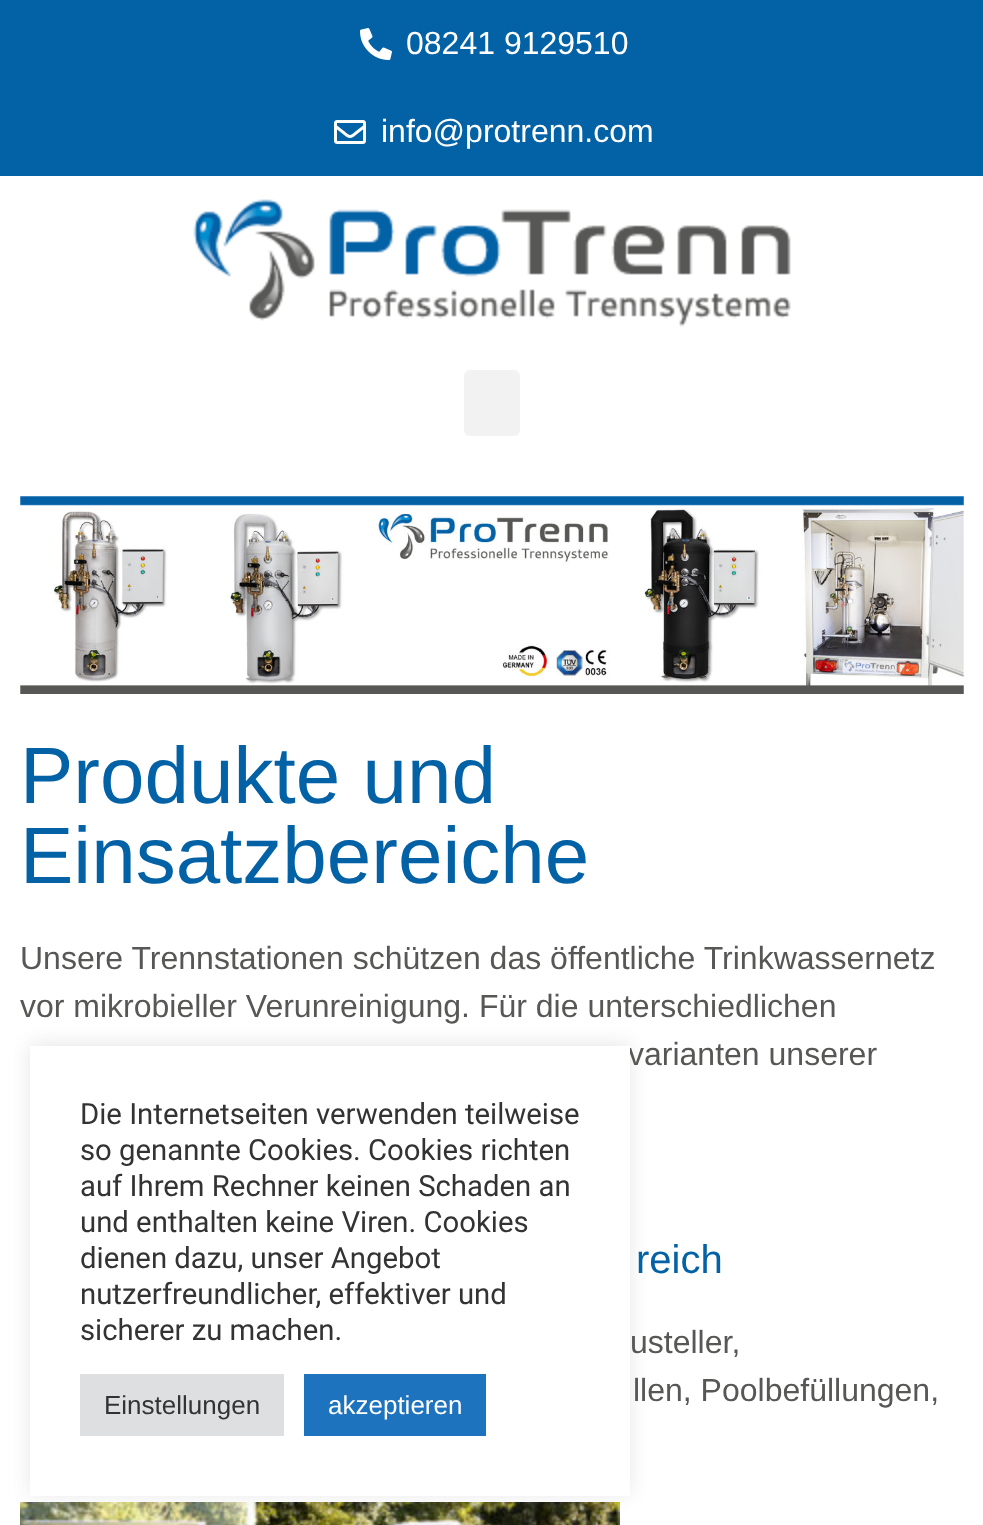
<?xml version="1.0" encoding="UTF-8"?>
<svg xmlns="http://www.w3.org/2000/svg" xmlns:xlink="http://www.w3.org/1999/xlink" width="983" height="1525">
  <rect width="100%" height="100%" fill="#ffffff" />
  <rect width="983" height="176" fill="#0361a6" />
  <image x="360" y="28" width="32" height="32" xlink:href="image1.png" />
  <image x="334" y="120" width="32" height="24" xlink:href="image2.png" />
  <image x="193" y="199" width="598" height="128" xlink:href="image3.png" />
  <rect x="464" y="370" width="56" height="66" rx="6" fill="#f2f2f2" />
  <image x="20" y="496" width="944" height="198" xlink:href="image4.png" />
  <image x="20" y="1502" width="600" height="23" xlink:href="image5.png" />
  <rect x="30" y="1044" width="600" height="450" fill="#acabab" fill-opacity="0.3" filter="blur(10px)" />
  <text x="406" y="54" style="font-family: Liberation Sans; font-size: 32px; fill: #ffffff">08241 9129510</text>
  <text x="381" y="142" style="font-family: Liberation Sans; font-size: 32px; fill: #ffffff">info@protrenn.com</text>
  <text x="20" y="803" style="font-family: Liberation Sans; font-size: 80px; fill: #0361a6">Produkte und</text>
  <text x="20" y="883" style="font-family: Liberation Sans; font-size: 80px; fill: #0361a6">Einsatzbereiche</text>
  <text x="20" y="969" style="font-family: Liberation Sans; font-size: 32px; fill: #575756">Unsere Trennstationen schützen das öffentliche Trinkwassernetz</text>
  <text x="20" y="1017" style="font-family: Liberation Sans; font-size: 32px; fill: #575756">vor mikrobieller Verunreinigung. Für die unterschiedlichen</text>
  <text x="628" y="1065" style="font-family: Liberation Sans; font-size: 32px; fill: #575756">varianten unserer</text>
  <text x="636" y="1273" style="font-family: Liberation Sans; font-size: 40px; fill: #0361a6">reich</text>
  <text x="630" y="1353" style="font-family: Liberation Sans; font-size: 32px; fill: #575756">usteller,</text>
  <text x="633" y="1401" style="font-family: Liberation Sans; font-size: 32px; fill: #575756">llen, Poolbefüllungen,</text>
  <rect x="30" y="1046" width="600" height="450" fill="#ffffff" />
  <text x="80" y="1124" style="font-family: Roboto; font-size: 29.3px; fill: #333333">Die Internetseiten verwenden teilweise</text>
  <text x="80" y="1160" style="font-family: Roboto; font-size: 29.3px; fill: #333333">so genannte Cookies. Cookies richten</text>
  <text x="80" y="1196" style="font-family: Roboto; font-size: 29.3px; fill: #333333">auf Ihrem Rechner keinen Schaden an</text>
  <text x="80" y="1232" style="font-family: Roboto; font-size: 29.3px; fill: #333333">und enthalten keine Viren. Cookies</text>
  <text x="80" y="1268" style="font-family: Roboto; font-size: 29.3px; fill: #333333">dienen dazu, unser Angebot</text>
  <text x="80" y="1304" style="font-family: Roboto; font-size: 29.3px; fill: #333333">nutzerfreundlicher, effektiver und</text>
  <text x="80" y="1340" style="font-family: Roboto; font-size: 29.3px; fill: #333333">sicherer zu machen.</text>
  <rect x="80" y="1374" width="204" height="62" fill="#dedfe0" />
  <text x="104" y="1414" style="font-family: Liberation Sans; font-size: 26px; fill: #333333">Einstellungen</text>
  <rect x="304" y="1374" width="182" height="62" fill="#1e73be" />
  <text x="328" y="1414" style="font-family: Liberation Sans; font-size: 26px; fill: #ffffff">akzeptieren</text>
</svg>
